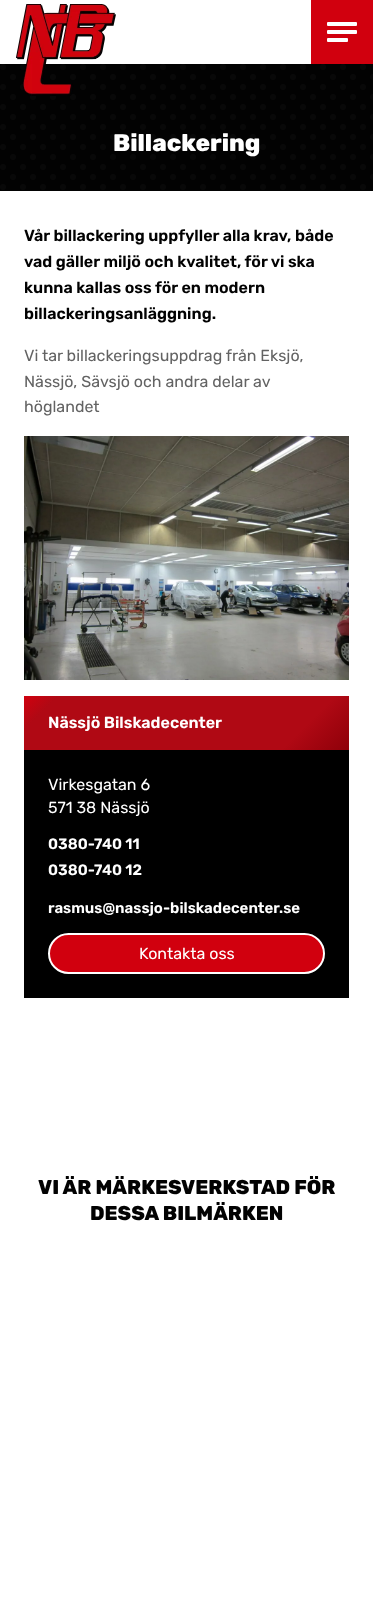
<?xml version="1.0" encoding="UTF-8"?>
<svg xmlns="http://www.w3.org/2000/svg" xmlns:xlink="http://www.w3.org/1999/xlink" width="373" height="1610">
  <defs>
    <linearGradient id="g1" gradientUnits="userSpaceOnUse" x1="92" y1="628" x2="281" y2="818"><stop offset="0" stop-color="#d1000e" /><stop offset="0.09" stop-color="#b00914" /><stop offset="0.82" stop-color="#b00914" /><stop offset="1" stop-color="#8e0009" /></linearGradient>
  </defs>
  <rect width="100%" height="100%" fill="#ffffff" />
  <rect y="64" width="373" height="127" fill="#020202" />
  <image x="0" y="64" width="373" height="126" xlink:href="image2.png" />
  <image x="16" y="4" width="100" height="92" xlink:href="image1.png" />
  <rect x="311" width="62" height="64" fill="#d1000e" />
  <rect x="327" y="22" width="30" height="4" rx="1" fill="#ffffff" />
  <rect x="327" y="30" width="30" height="4" rx="1" fill="#ffffff" />
  <rect x="327" y="38" width="21" height="4" rx="1" fill="#ffffff" />
  <image x="24" y="436" width="325" height="244" xlink:href="image3.png" />
  <rect x="24" y="696" width="325" height="54" fill="url(#g1)" />
  <rect x="24" y="750" width="325" height="248" fill="#000000" />
  <rect x="49" y="934" width="275" height="39" rx="19.5" fill="#d1000e" stroke="#ffffff" stroke-width="2" />
  <text x="113" y="151" style="font-family: Rubik; font-size: 24px; font-weight: 800; fill: #ffffff">Billackering</text>
  <text x="24" y="241" style="font-family: Rubik; font-size: 16px; font-weight: 600; fill: #020202">Vår billackering uppfyller alla krav, både</text>
  <text x="24" y="267" style="font-family: Rubik; font-size: 16px; font-weight: 600; fill: #020202">vad gäller miljö och kvalitet, för vi ska</text>
  <text x="24" y="293" style="font-family: Rubik; font-size: 16px; font-weight: 600; fill: #020202">kunna kallas oss för en modern</text>
  <text x="24" y="319" style="font-family: Rubik; font-size: 16px; font-weight: 600; fill: #020202">billackeringsanläggning.</text>
  <text x="24" y="361" style="font-family: Rubik; font-size: 16px; font-weight: 300; fill: #636363">Vi tar billackeringsuppdrag från Eksjö,</text>
  <text x="24" y="387" style="font-family: Rubik; font-size: 16px; font-weight: 300; fill: #636363">Nässjö, Sävsjö och andra delar av</text>
  <text x="24" y="412" style="font-family: Rubik; font-size: 16px; font-weight: 300; fill: #636363">höglandet</text>
  <text x="48" y="728" style="font-family: Rubik; font-size: 16px; font-weight: 600; fill: #ffffff">Nässjö Bilskadecenter</text>
  <text x="48" y="790" style="font-family: Rubik; font-size: 16px; font-weight: 300; fill: #ffffff">Virkesgatan 6</text>
  <text x="48" y="813" style="font-family: Rubik; font-size: 16px; font-weight: 300; fill: #ffffff">571 38 Nässjö</text>
  <text x="48" y="849" style="font-family: Rubik; font-size: 15px; font-weight: 600; fill: #ffffff">0380-740 11</text>
  <text x="48" y="875" style="font-family: Rubik; font-size: 15px; font-weight: 600; fill: #ffffff">0380-740 12</text>
  <text x="48" y="913" style="font-family: Rubik; font-size: 15px; font-weight: 600; fill: #ffffff">rasmus@nassjo-bilskadecenter.se</text>
  <text x="139" y="959" style="font-family: Rubik; font-size: 16px; font-weight: 300; fill: #ffffff">Kontakta oss</text>
  <text x="38" y="1194" style="font-family: Rubik; font-size: 20px; font-weight: 800; fill: #020202">VI ÄR MÄRKESVERKSTAD FÖR</text>
  <text x="90" y="1220" style="font-family: Rubik; font-size: 20px; font-weight: 800; fill: #020202">DESSA BILMÄRKEN</text>
</svg>
